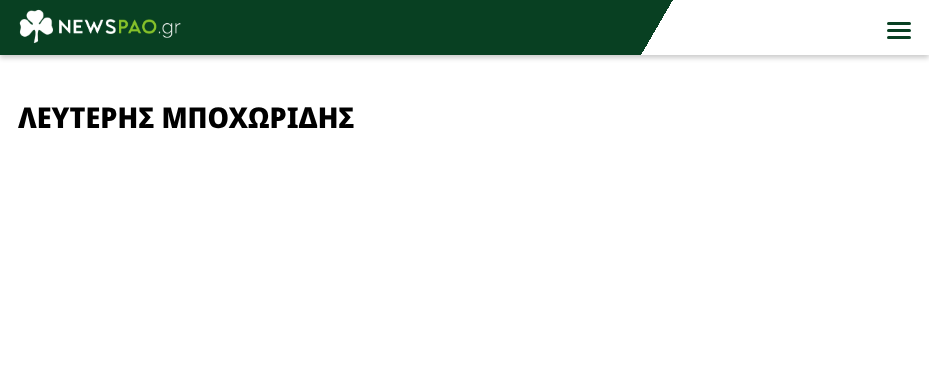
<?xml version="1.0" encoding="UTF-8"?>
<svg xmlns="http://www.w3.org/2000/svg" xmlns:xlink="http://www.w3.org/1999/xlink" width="929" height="386">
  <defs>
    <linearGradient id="g1" gradientUnits="userSpaceOnUse" x1="104" y1="-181" x2="825" y2="236"><stop offset="0.7" stop-color="#084022" /><stop offset="0.7" stop-color="#ffffff" /></linearGradient>
  </defs>
  <rect width="100%" height="100%" fill="#ffffff" />
  <rect y="3" width="929" height="55" fill="#000000" fill-opacity="0.2" filter="blur(2.5px)" />
  <rect width="929" height="55" fill="url(#g1)" />
  <image x="19" y="9" width="162" height="35" xlink:href="image1.png" />
  <rect x="887" y="22" width="24" height="3" rx="1.5" fill="#084022" />
  <rect x="887" y="29" width="24" height="3" rx="1.5" fill="#084022" />
  <rect x="887" y="36" width="24" height="3" rx="1.5" fill="#084022" />
  <text x="18" y="128" style="font-family: Noto Sans Display; font-size: 28.75px; font-weight: 800; fill: #000000">ΛΕΥΤΕΡΗΣ ΜΠΟΧΩΡΙΔΗΣ</text>
</svg>
